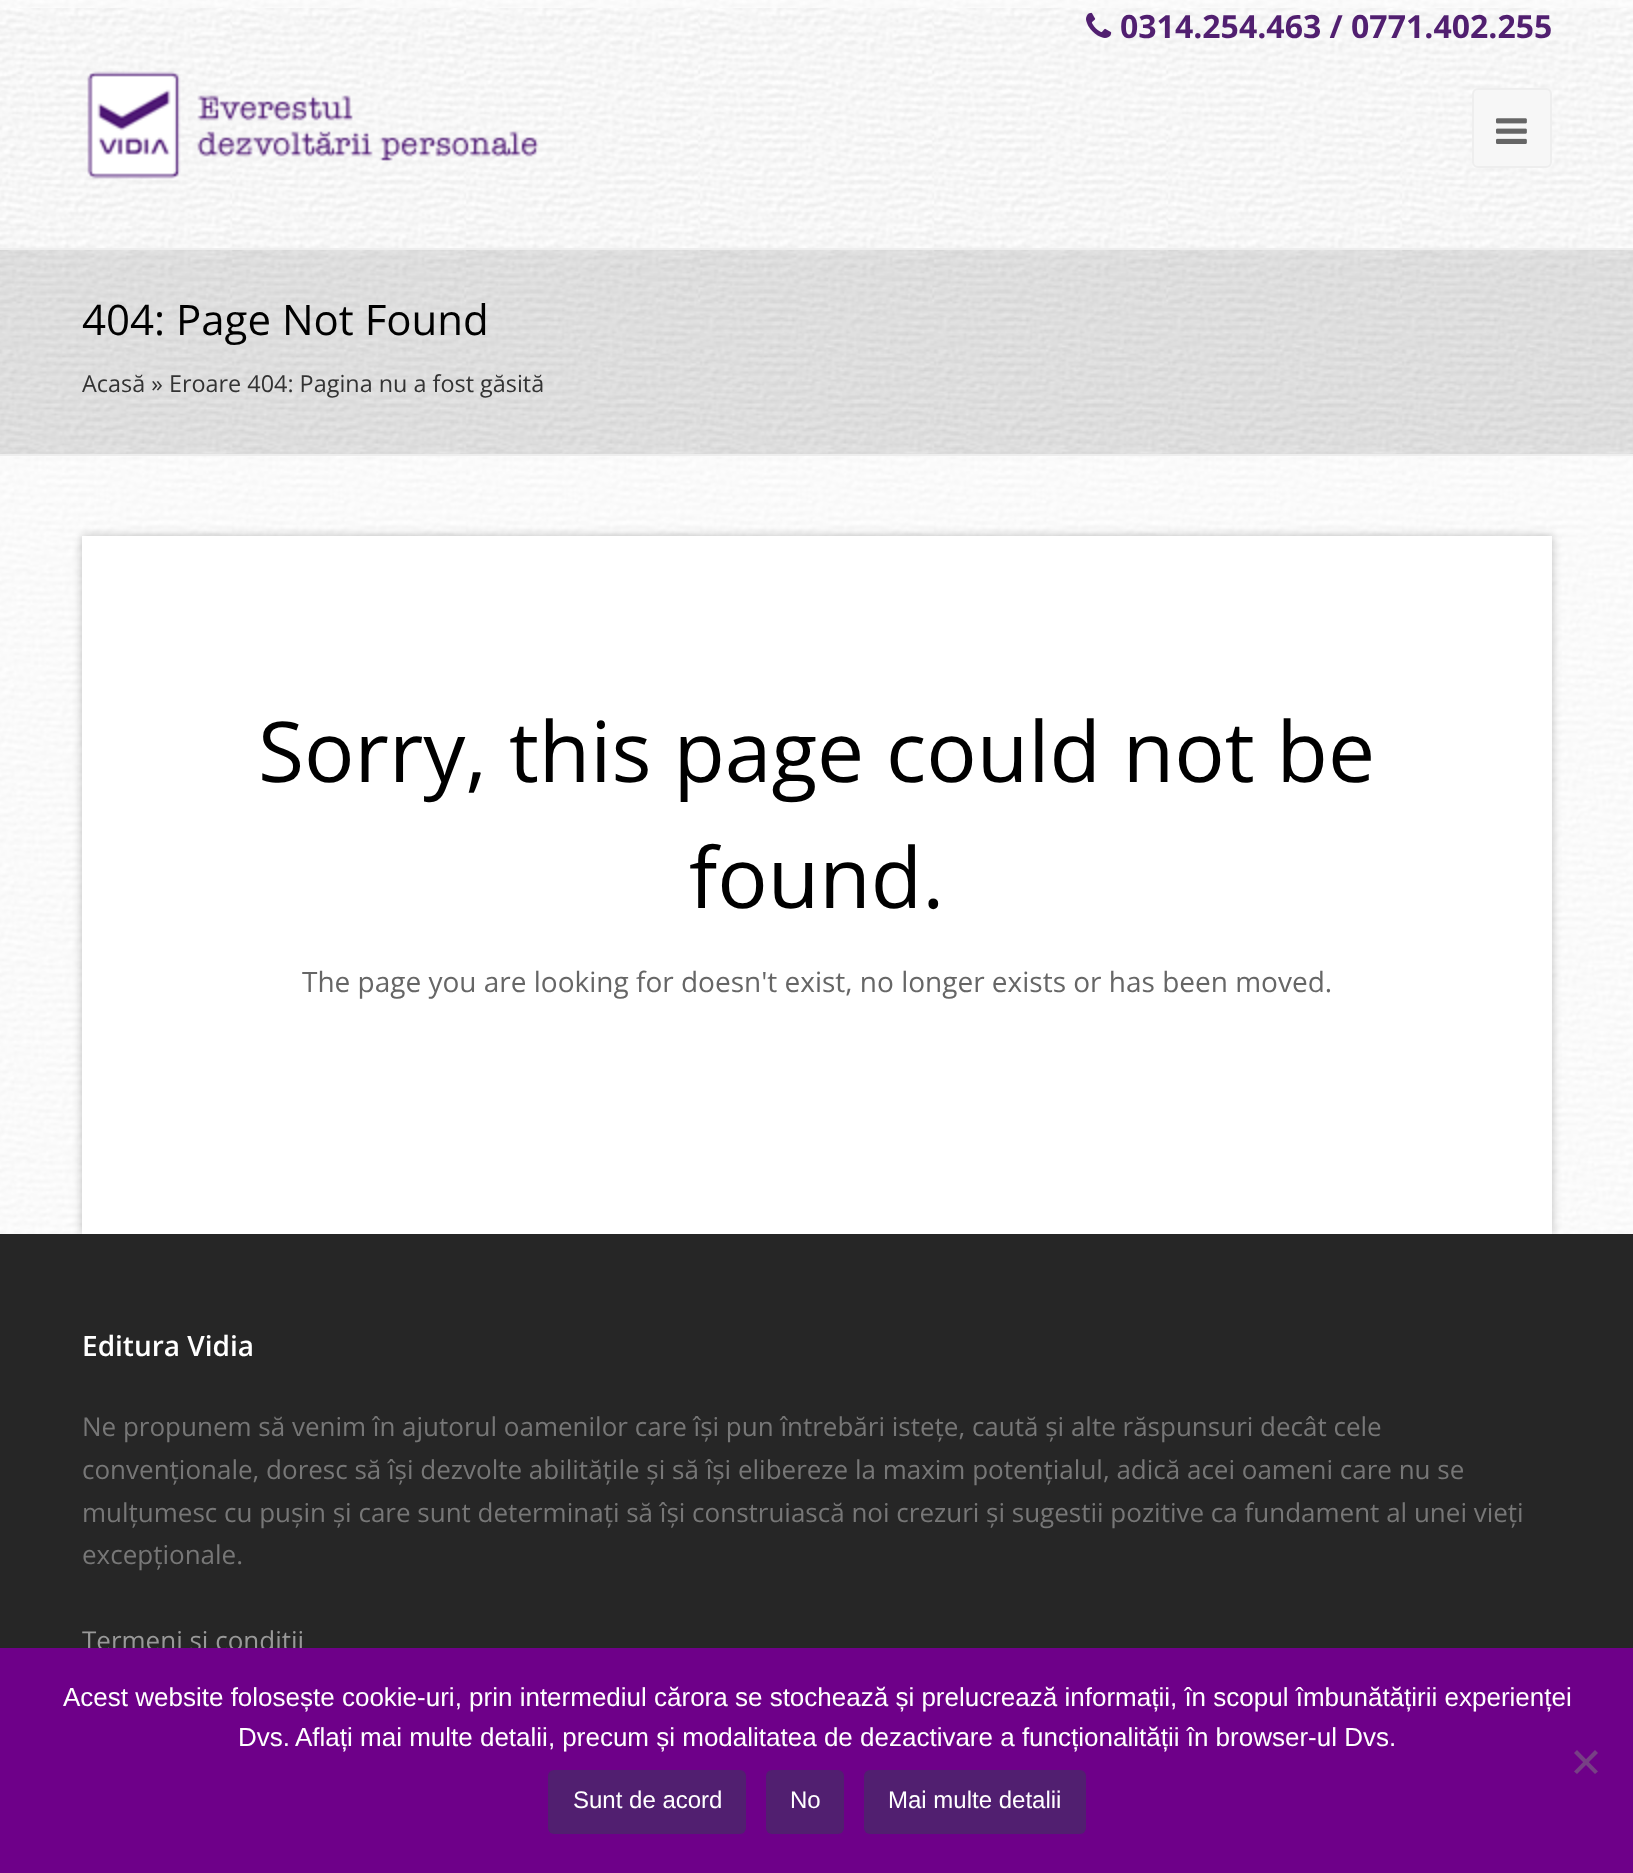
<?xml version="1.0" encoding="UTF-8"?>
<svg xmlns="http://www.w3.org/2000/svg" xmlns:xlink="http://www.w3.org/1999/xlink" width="1633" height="1873">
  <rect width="100%" height="100%" fill="#ffffff" />
  <image x="0" y="0" width="1633" height="1234" xlink:href="image1.png" />
  <image x="0" y="8" width="1633" height="240" xlink:href="image3.png" />
  <image x="1086" y="12" width="26" height="26" xlink:href="image2.png" />
  <image x="87" y="71" width="452" height="108" xlink:href="image4.png" />
  <rect x="1473" y="89" width="78" height="78" rx="5" fill="#f7f7f7" stroke="#eeeeee" stroke-width="2" />
  <image x="1496" y="118" width="31" height="26" xlink:href="image5.png" />
  <image x="0" y="250" width="1633" height="204" xlink:href="image6.png" />
  <rect y="248" width="1633" height="2" fill="#eeeeee" />
  <rect y="454" width="1633" height="2" fill="#eeeeee" />
  <rect x="82" y="536" width="1470" height="698" fill="#000000" fill-opacity="0.25" filter="blur(5px)" />
  <rect x="82" y="536" width="1470" height="698" fill="#ffffff" />
  <rect y="1234" width="1633" height="414" fill="#262626" />
  <text x="1120" y="38" style="font-family: Open Sans; font-size: 32px; font-weight: bold; fill: #511f70">0314.254.463 / 0771.402.255</text>
  <text x="82" y="335" style="font-family: Open Sans; font-size: 42px; fill: #000000">404: Page Not Found</text>
  <text x="82" y="392" style="font-family: Open Sans; font-size: 23.4px; fill: #333333">Acasă » Eroare 404: Pagina nu a fost găsită</text>
  <text x="258" y="782" style="font-family: Open Sans; font-size: 84px; fill: #000000">Sorry, this page could not be</text>
  <text x="689" y="908" style="font-family: Open Sans; font-size: 84px; fill: #000000">found.</text>
  <text x="302" y="992" style="font-family: Open Sans; font-size: 28px; fill: #666666">The page you are looking for doesn't exist, no longer exists or has been moved.</text>
  <text x="82" y="1356" style="font-family: Open Sans; font-size: 28px; font-weight: 600; fill: #ffffff">Editura Vidia</text>
  <text x="82" y="1436" style="font-family: Open Sans; font-size: 26px; fill: #777777">Ne propunem să venim în ajutorul oamenilor care își pun întrebări istețe, caută și alte răspunsuri decât cele</text>
  <text x="82" y="1479" style="font-family: Open Sans; font-size: 26px; fill: #777777">convenționale, doresc să își dezvolte abilitățile și să își elibereze la maxim potențialul, adică acei oameni care nu se</text>
  <text x="82" y="1522" style="font-family: Open Sans; font-size: 26px; fill: #777777">mulțumesc cu pușin și care sunt determinați să își construiască noi crezuri și sugestii pozitive ca fundament al unei vieți</text>
  <text x="82" y="1564" style="font-family: Open Sans; font-size: 26px; fill: #777777">excepționale.</text>
  <text x="82" y="1650" style="font-family: Open Sans; font-size: 26px; fill: #999999">Termeni și condiții</text>
  <rect y="1648" width="1633" height="225" fill="#6e0089" />
  <text x="63" y="1706" style="font-family: Liberation Sans; font-size: 26px; fill: #ffffff">Acest website folosește cookie-uri, prin intermediul cărora se stochează și prelucrează informații, în scopul îmbunătățirii experienței</text>
  <text x="238" y="1746" style="font-family: Liberation Sans; font-size: 26px; fill: #ffffff">Dvs.</text>
  <text x="295" y="1746" style="font-family: Liberation Sans; font-size: 26px; fill: #ffffff">Aflați mai multe detalii, precum și modalitatea de dezactivare a funcționalității în browser-ul Dvs.</text>
  <path d="M 1595 1750 l 3 3 l -21 21 l -3 -2.5 z" fill="#774085" />
  <path d="M 1574 1753 l 3 -3 l 21 21.5 l -3 2.5 z" fill="#774085" />
  <rect x="548" y="1770" width="198" height="64" rx="6" fill="#511f70" />
  <text x="573" y="1808" style="font-family: Liberation Sans; font-size: 24px; fill: #ffffff">Sunt de acord</text>
  <rect x="766" y="1770" width="78" height="64" rx="6" fill="#511f70" />
  <text x="790" y="1808" style="font-family: Liberation Sans; font-size: 24px; fill: #ffffff">No</text>
  <rect x="864" y="1770" width="222" height="64" rx="6" fill="#511f70" />
  <text x="888" y="1808" style="font-family: Liberation Sans; font-size: 24px; fill: #ffffff">Mai multe detalii</text>
</svg>
